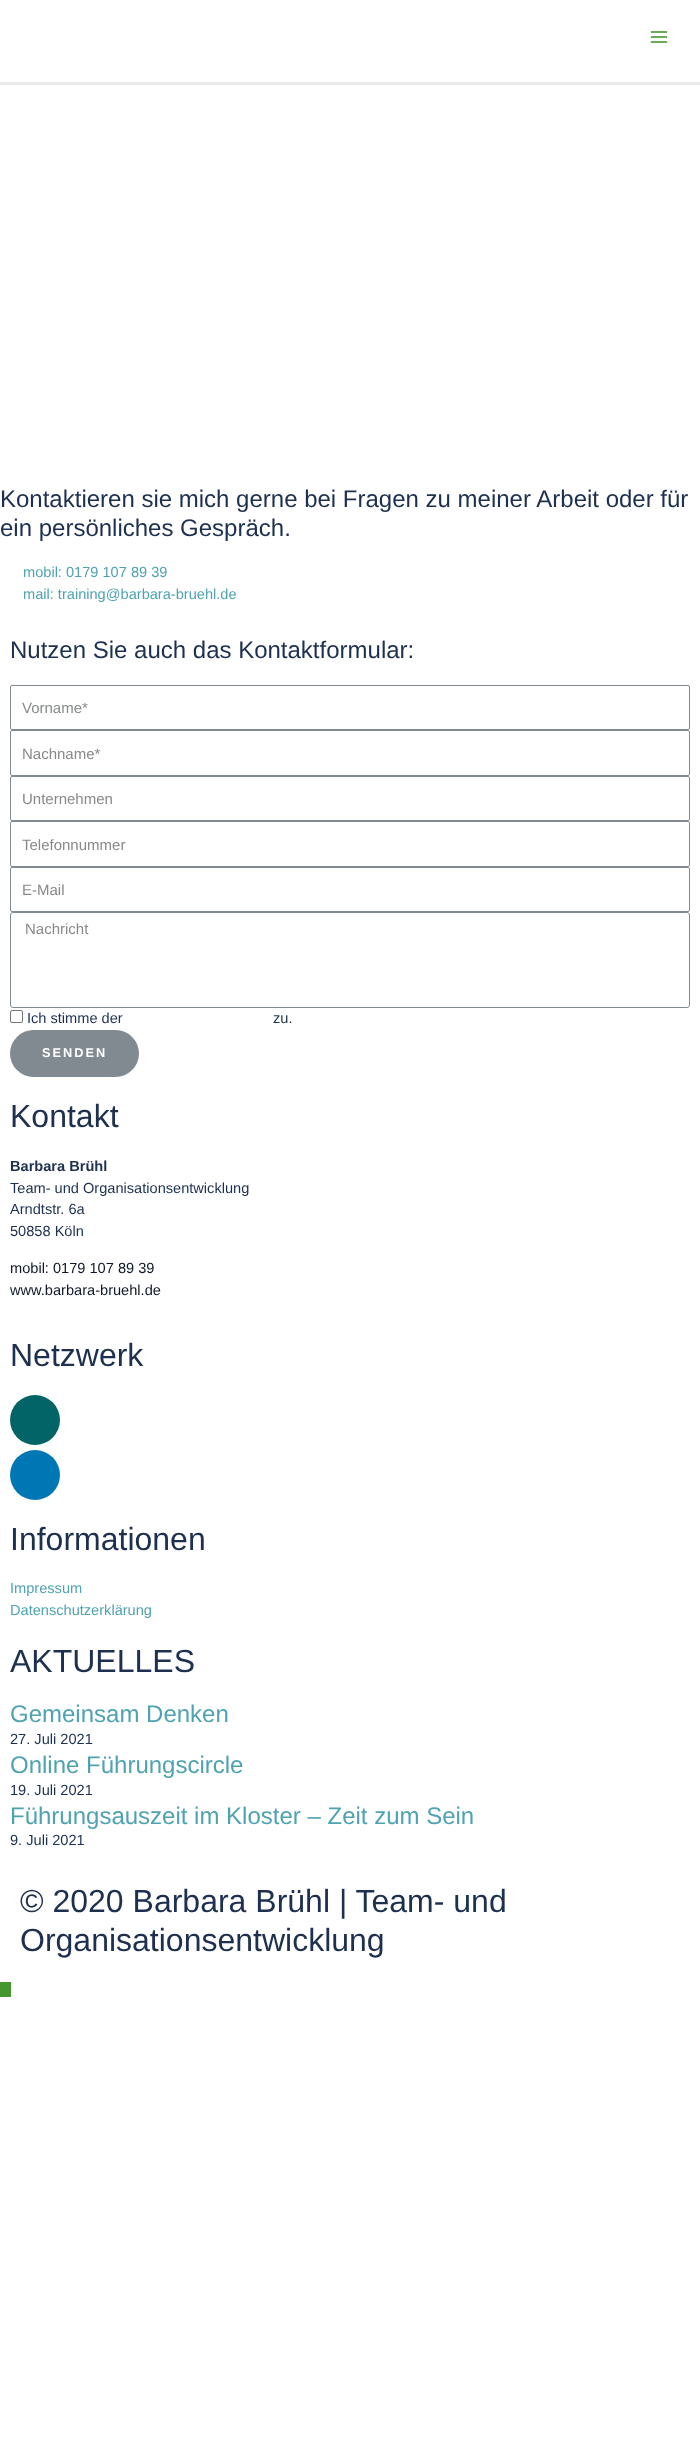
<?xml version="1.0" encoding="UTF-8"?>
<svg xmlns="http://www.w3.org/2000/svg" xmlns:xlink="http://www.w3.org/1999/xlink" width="700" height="2458">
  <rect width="100%" height="100%" fill="#ffffff" />
  <rect y="82" width="700" height="3" fill="#eaeaea" />
  <image x="650" y="31" width="18" height="12" xlink:href="image1.png" />
  <rect x="10.5" y="685.5" width="679" height="44" rx="1.5" fill="none" stroke="#818a91" />
  <rect x="10.5" y="730.5" width="679" height="45" rx="1.5" fill="none" stroke="#818a91" />
  <rect x="10.5" y="776.5" width="679" height="44" rx="1.5" fill="none" stroke="#818a91" />
  <rect x="10.5" y="821.5" width="679" height="45" rx="1.5" fill="none" stroke="#818a91" />
  <rect x="10.5" y="867.5" width="679" height="44" rx="1.5" fill="none" stroke="#818a91" />
  <rect x="10.5" y="912.5" width="679" height="95" rx="2.5" fill="none" stroke="#818a91" />
  <rect x="10.5" y="1010.5" width="12" height="12" rx="1.5" fill="none" stroke="#767676" />
  <rect x="10" y="1030" width="129" height="47" rx="23.5" fill="#818a91" />
  <circle cx="35" cy="1420" r="25" fill="#026466" />
  <circle cx="35" cy="1475" r="25" fill="#0077b5" />
  <rect y="1982" width="11" height="15" fill="#44972d" />
  <text x="0" y="507" style="font-family: Liberation Sans; font-size: 24px; fill: #1d3050">Kontaktieren sie mich gerne bei Fragen zu meiner Arbeit oder für</text>
  <text x="0" y="536" style="font-family: Liberation Sans; font-size: 24px; fill: #1d3050">ein persönliches Gespräch.</text>
  <text x="23" y="577" style="font-family: Liberation Sans; font-size: 14.6px; fill: #4fa3b1">mobil: 0179 107 89 39</text>
  <text x="23" y="599" style="font-family: Liberation Sans; font-size: 14.6px; fill: #4fa3b1">mail: training@barbara-bruehl.de</text>
  <text x="10" y="658" style="font-family: Liberation Sans; font-size: 24px; fill: #1d3050">Nutzen Sie auch das Kontaktformular:</text>
  <text x="22" y="713" style="font-family: Liberation Sans; font-size: 15px; fill: #87898a">Vorname*</text>
  <text x="22" y="759" style="font-family: Liberation Sans; font-size: 15px; fill: #87898a">Nachname*</text>
  <text x="22" y="804" style="font-family: Liberation Sans; font-size: 15px; fill: #87898a">Unternehmen</text>
  <text x="22" y="850" style="font-family: Liberation Sans; font-size: 15px; fill: #87898a">Telefonnummer</text>
  <text x="22" y="895" style="font-family: Liberation Sans; font-size: 15px; fill: #87898a">E-Mail</text>
  <text x="25" y="934" style="font-family: Liberation Sans; font-size: 15px; fill: #87898a">Nachricht</text>
  <text x="27" y="1023" style="font-family: Liberation Sans; font-size: 14.6px; fill: #1d3050">Ich stimme der</text>
  <text x="273" y="1023" style="font-family: Liberation Sans; font-size: 14.6px; fill: #1d3050">zu.</text>
  <text x="42" y="1057" style="font-family: Liberation Sans; font-size: 12.75px; font-weight: bold; letter-spacing: 2px; fill: #ffffff">SENDEN</text>
  <text x="10" y="1127" style="font-family: Liberation Sans; font-size: 32px; fill: #1d3050">Kontakt</text>
  <text x="10" y="1171" style="font-family: Liberation Sans; font-size: 14.6px; font-weight: bold; fill: #1d3050">Barbara Brühl</text>
  <text x="10" y="1193" style="font-family: Liberation Sans; font-size: 14.6px; fill: #1d3050">Team- und Organisationsentwicklung</text>
  <text x="10" y="1214" style="font-family: Liberation Sans; font-size: 14.6px; fill: #1d3050">Arndtstr. 6a</text>
  <text x="10" y="1236" style="font-family: Liberation Sans; font-size: 14.6px; fill: #1d3050">50858 Köln</text>
  <text x="10" y="1273" style="font-family: Liberation Sans; font-size: 14.6px; fill: #0f1828">mobil: 0179 107 89 39</text>
  <text x="10" y="1295" style="font-family: Liberation Sans; font-size: 14.6px; fill: #0f1828">www.barbara-bruehl.de</text>
  <text x="10" y="1366" style="font-family: Liberation Sans; font-size: 32px; fill: #1d3050">Netzwerk</text>
  <text x="10" y="1550" style="font-family: Liberation Sans; font-size: 32px; fill: #1d3050">Informationen</text>
  <text x="10" y="1593" style="font-family: Liberation Sans; font-size: 14.6px; fill: #4fa3b1">Impressum</text>
  <text x="10" y="1615" style="font-family: Liberation Sans; font-size: 14.6px; fill: #4fa3b1">Datenschutzerklärung</text>
  <text x="10" y="1672" style="font-family: Liberation Sans; font-size: 32px; fill: #1d3050">AKTUELLES</text>
  <text x="10" y="1722" style="font-family: Liberation Sans; font-size: 24px; fill: #4fa3b1">Gemeinsam Denken</text>
  <text x="10" y="1744" style="font-family: Liberation Sans; font-size: 14.6px; fill: #1d3050">27. Juli 2021</text>
  <text x="10" y="1773" style="font-family: Liberation Sans; font-size: 24px; fill: #4fa3b1">Online Führungscircle</text>
  <text x="10" y="1795" style="font-family: Liberation Sans; font-size: 14.6px; fill: #1d3050">19. Juli 2021</text>
  <text x="10" y="1824" style="font-family: Liberation Sans; font-size: 24px; fill: #4fa3b1">Führungsauszeit im Kloster – Zeit zum Sein</text>
  <text x="10" y="1845" style="font-family: Liberation Sans; font-size: 14.6px; fill: #1d3050">9. Juli 2021</text>
  <text x="20" y="1912" style="font-family: Liberation Sans; font-size: 32px; fill: #1d3050">© 2020 Barbara Brühl | Team- und</text>
  <text x="20" y="1951" style="font-family: Liberation Sans; font-size: 32px; fill: #1d3050">Organisationsentwicklung</text>
</svg>
